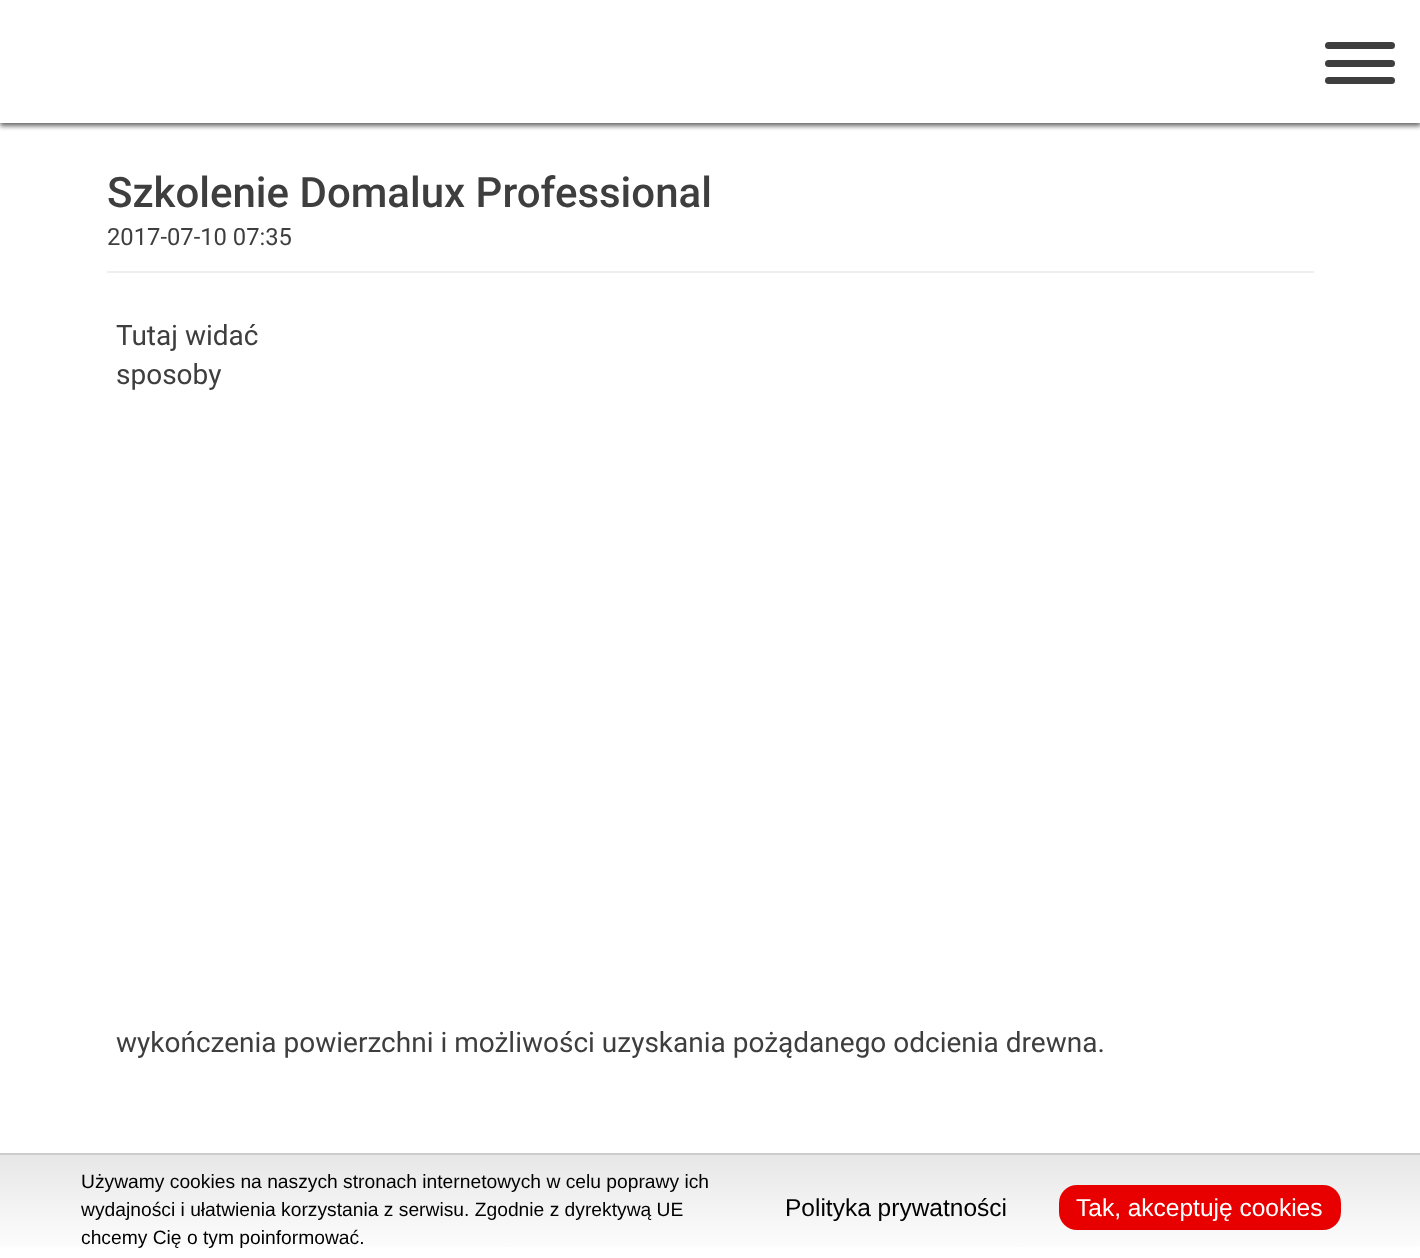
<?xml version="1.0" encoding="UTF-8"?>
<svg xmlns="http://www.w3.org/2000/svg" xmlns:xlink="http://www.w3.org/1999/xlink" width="1420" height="1258">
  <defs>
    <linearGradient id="g1" gradientUnits="userSpaceOnUse" x1="711" y1="1155" x2="711" y2="1258"><stop offset="0" stop-color="#e7e7e7" /><stop offset="1" stop-color="#ffffff" /></linearGradient>
  </defs>
  <rect width="100%" height="100%" fill="#ffffff" />
  <rect y="4" width="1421" height="122" fill="#666666" filter="blur(2.5px)" />
  <rect width="1420" height="123" fill="#ffffff" />
  <rect x="1325" y="77" width="70" height="7" rx="3.5" fill="#3e3e3e" />
  <rect x="1325" y="42" width="70" height="7" rx="3.5" fill="#3e3e3e" />
  <rect x="1325" y="60" width="70" height="7" rx="3.5" fill="#3e3e3e" />
  <rect x="107" y="271" width="1207" height="2" fill="#eeeeee" />
  <rect y="1155" width="1420" height="92" fill="url(#g1)" />
  <rect y="1153" width="1420" height="2" fill="#cccccc" />
  <rect x="1059" y="1185" width="282" height="45" rx="18" fill="#e80000" />
  <text x="107" y="207" style="font-family: Roboto; font-size: 42px; font-weight: 500; fill: #3e3e3e">Szkolenie Domalux Professional</text>
  <text x="107" y="245" style="font-family: Roboto; font-size: 23.75px; fill: #3e3e3e">2017-07-10 07:35</text>
  <text x="116" y="345" style="font-family: Roboto; font-size: 28px; fill: #3e3e3e">Tutaj widać</text>
  <text x="116" y="384" style="font-family: Roboto; font-size: 28px; fill: #3e3e3e">sposoby</text>
  <text x="116" y="1052" style="font-family: Roboto; font-size: 28px; fill: #3e3e3e">wykończenia powierzchni i możliwości uzyskania pożądanego odcienia drewna.</text>
  <text x="81" y="1188" style="font-family: Liberation Sans; font-size: 19.25px; fill: #000000">Używamy cookies na naszych stronach internetowych w celu poprawy ich</text>
  <text x="81" y="1216" style="font-family: Liberation Sans; font-size: 19.25px; fill: #000000">wydajności i ułatwienia korzystania z serwisu. Zgodnie z dyrektywą UE</text>
  <text x="81" y="1244" style="font-family: Liberation Sans; font-size: 19.25px; fill: #000000">chcemy Cię o tym poinformować.</text>
  <text x="785" y="1216" style="font-family: Liberation Sans; font-size: 24.5px; fill: #000000">Polityka prywatności</text>
  <text x="1076" y="1216" style="font-family: Liberation Sans; font-size: 24.5px; fill: #ffffff">Tak, akceptuję cookies</text>
</svg>
